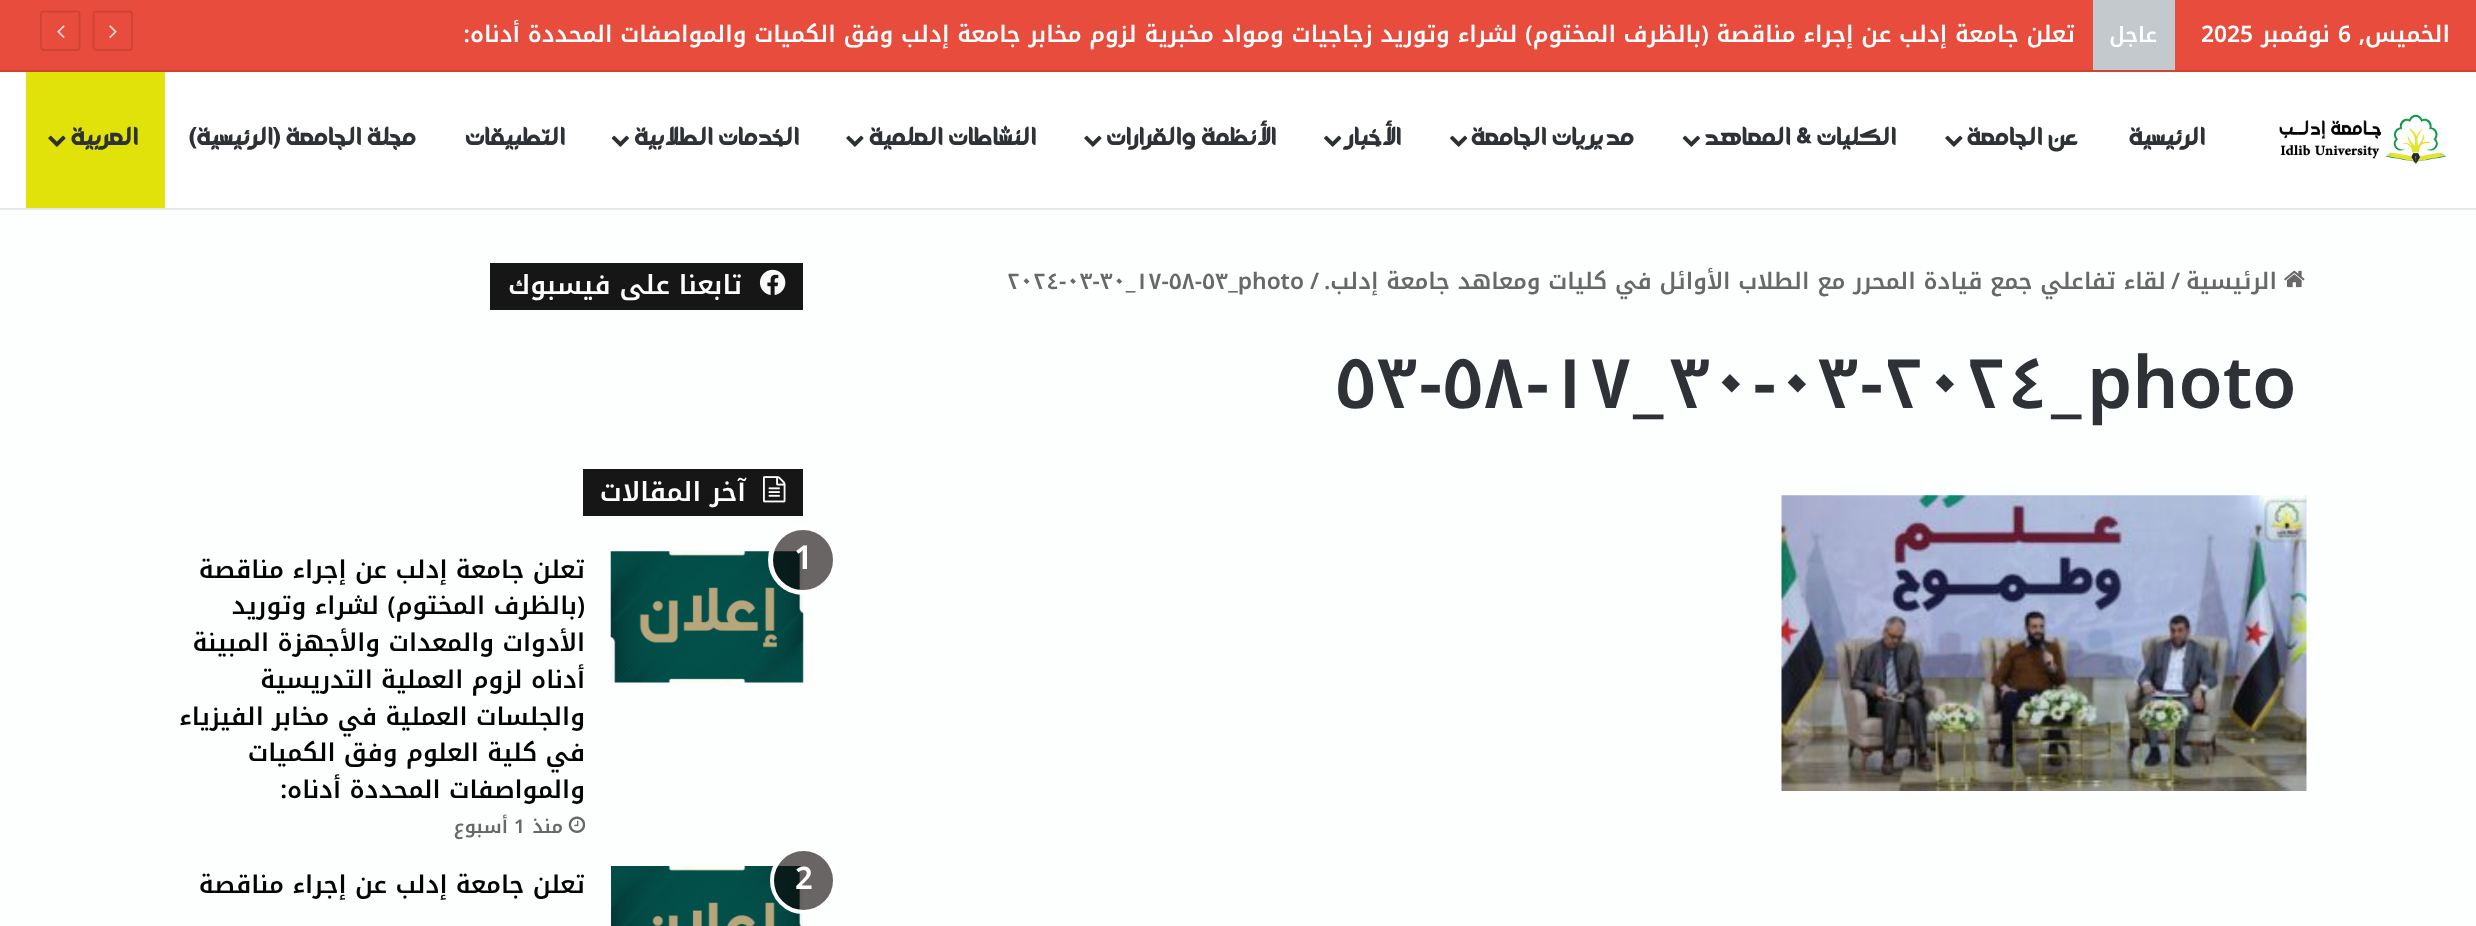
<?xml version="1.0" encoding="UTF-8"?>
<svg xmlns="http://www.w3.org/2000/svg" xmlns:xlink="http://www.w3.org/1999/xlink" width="2476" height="926">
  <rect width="100%" height="100%" fill="#fcfffd" />
  <rect y="72" width="2476" height="136" fill="#ffffff" />
  <rect width="2476" height="70" fill="#e74c3c" />
  <rect y="70" width="2476" height="2" fill="#d04436" />
  <rect x="2093" width="82" height="70" fill="#c3c9cc" />
  <path d="M 129.5 50 h -33.5 c -1 0 -2.5 -1.5 -2.5 -3 v -33 c 0 -1.5 1.5 -2.5 2.5 -2.5 h 33.5 c 1.5 0 2.5 1 2.5 2.5 v 33 c 0 1.5 -1 3 -2.5 3 z" fill="none" stroke="#d04436" stroke-width="1.8" />
  <image x="109" y="25" width="8" height="13" xlink:href="image1.png" />
  <path d="M 77 50 h -33 c -1.5 0 -3 -1.5 -3 -3 v -33 c 0 -1.5 1.5 -2.5 3 -2.5 h 33 c 1.5 0 2.5 1 2.5 2.5 v 33 c 0 1.5 -1 3 -2.5 3 z" fill="none" stroke="#d04436" stroke-width="1.8" />
  <image x="57" y="25" width="8" height="13" xlink:href="image2.png" />
  <rect y="208" width="2476" height="2" fill="#e6e6e6" />
  <image x="2279" y="114" width="167" height="50" xlink:href="image3.png" />
  <image x="1945" y="135" width="18" height="12" xlink:href="image4.png" />
  <image x="1682" y="135" width="18" height="12" xlink:href="image5.png" />
  <image x="1450" y="135" width="18" height="12" xlink:href="image6.png" />
  <image x="1324" y="135" width="18" height="12" xlink:href="image6.png" />
  <image x="1084" y="135" width="18" height="12" xlink:href="image4.png" />
  <image x="846" y="135" width="18" height="12" xlink:href="image4.png" />
  <image x="611" y="135" width="18" height="12" xlink:href="image5.png" />
  <rect x="26" y="72" width="139" height="136" fill="#e2e20b" />
  <image x="48" y="135" width="18" height="12" xlink:href="image7.png" />
  <image x="2284" y="270" width="21" height="18" xlink:href="image8.png" />
  <image x="1781" y="495" width="526" height="296" xlink:href="image9.png" />
  <rect x="490" y="263" width="313" height="47" fill="#161616" />
  <image x="759" y="269" width="27" height="26" xlink:href="image10.png" />
  <rect x="583" y="469" width="220" height="47" fill="#161616" />
  <image x="763" y="476" width="23" height="27" xlink:href="image11.png" />
  <image x="610" y="551" width="194" height="132" xlink:href="image12.png" />
  <circle cx="803" cy="560" r="32.5" fill="#0c0303" fill-opacity="0.61" stroke="#ffffff" stroke-width="5" />
  <image x="568" y="816" width="17" height="17" xlink:href="image13.png" />
  <image x="611" y="866" width="192" height="60" xlink:href="image14.png" />
  <circle cx="803.5" cy="880.5" r="31.5" fill="#0c0303" fill-opacity="0.61" stroke="#ffffff" stroke-width="4" />
  <text x="2450" y="42" style="font-family: Noto Kufi Arabic; font-size: 22.75px; font-weight: 600; direction: rtl; fill: #ffffff">الخميس,</text>
  <text x="2338" y="42" style="font-family: Noto Kufi Arabic; font-size: 22.75px; font-weight: 600; fill: #ffffff">6</text>
  <text x="2330" y="42" style="font-family: Noto Kufi Arabic; font-size: 22.75px; font-weight: 600; direction: rtl; fill: #ffffff">نوفمبر</text>
  <text x="2201" y="42" style="font-family: Noto Kufi Arabic; font-size: 22.75px; font-weight: 600; fill: #ffffff">2025</text>
  <text x="2157" y="42" style="font-family: Noto Kufi Arabic; font-size: 21px; font-weight: 600; direction: rtl; fill: #ffffff">عاجل</text>
  <text x="2075" y="42" style="font-family: Noto Kufi Arabic; font-size: 22.75px; font-weight: 600; direction: rtl; fill: #ffffff">تعلن جامعة إدلب عن إجراء مناقصة (بالظرف المختوم) لشراء وتوريد زجاجيات ومواد مخبرية لزوم مخابر جامعة إدلب وفق الكميات والمواصفات المحددة أدناه:</text>
  <text x="2205" y="145" style="font-family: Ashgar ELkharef; font-size: 24.5px; font-weight: bold; direction: rtl; fill: #2e3136">الرئيسية</text>
  <text x="2078" y="145" style="font-family: Ashgar ELkharef; font-size: 24.5px; font-weight: bold; direction: rtl; fill: #2e3136">عن الجامعة</text>
  <text x="1896" y="145" style="font-family: Ashgar ELkharef; font-size: 24.5px; font-weight: bold; direction: rtl; fill: #2e3136">الكليات &amp; المعاهد</text>
  <text x="1634" y="145" style="font-family: Ashgar ELkharef; font-size: 24.5px; font-weight: bold; direction: rtl; fill: #2e3136">مديريات الجامعة</text>
  <text x="1401" y="145" style="font-family: Ashgar ELkharef; font-size: 24.5px; font-weight: bold; direction: rtl; fill: #2e3136">الأخبار</text>
  <text x="1276" y="145" style="font-family: Ashgar ELkharef; font-size: 24.5px; font-weight: bold; direction: rtl; fill: #2e3136">الأنظمة والقرارات</text>
  <text x="1036" y="145" style="font-family: Ashgar ELkharef; font-size: 24.5px; font-weight: bold; direction: rtl; fill: #2e3136">النشاطات العلمية</text>
  <text x="799" y="145" style="font-family: Ashgar ELkharef; font-size: 24.5px; font-weight: bold; direction: rtl; fill: #2e3136">الخدمات الطلابية</text>
  <text x="565" y="145" style="font-family: Ashgar ELkharef; font-size: 24.5px; font-weight: bold; direction: rtl; fill: #2e3136">التطبيقات</text>
  <text x="416" y="145" style="font-family: Ashgar ELkharef; font-size: 24.5px; font-weight: bold; direction: rtl; fill: #2e3136">مجلة الجامعة (الرئيسية)</text>
  <text x="138" y="145" style="font-family: Ashgar ELkharef; font-size: 24.5px; font-weight: bold; direction: rtl; fill: #2e3136">العربية</text>
  <text x="2277" y="289" style="font-family: Noto Kufi Arabic; font-size: 22.75px; font-weight: 600; direction: rtl; fill: #686868">الرئيسية</text>
  <text x="2171" y="289" style="font-family: Noto Kufi Arabic; font-size: 22.75px; font-weight: 600; fill: #686868">/</text>
  <text x="2166" y="289" style="font-family: Noto Kufi Arabic; font-size: 22.75px; font-weight: 600; direction: rtl; fill: #686868">لقاء تفاعلي جمع قيادة المحرر مع الطلاب الأوائل في كليات ومعاهد جامعة إدلب.</text>
  <text x="1310" y="289" style="font-family: Noto Kufi Arabic; font-size: 22.75px; font-weight: 600; fill: #686868">/</text>
  <text x="1007" y="289" style="font-family: Noto Kufi Arabic; font-size: 22.75px; font-weight: 600; fill: #686868">٥٣-٥٨-١٧_٣٠-٠٣-٢٠٢٤_photo</text>
  <text x="2087" y="408" style="font-family: Noto Kufi Arabic; font-size: 72px; font-weight: 600; fill: #2e3136">photo</text>
  <text x="1860" y="408" style="font-family: Noto Kufi Arabic; font-size: 72px; font-weight: 600; fill: #2e3136">-٢٠٢٤</text>
  <text x="1753" y="408" style="font-family: Noto Kufi Arabic; font-size: 72px; font-weight: 600; fill: #2e3136">-٠٣</text>
  <text x="1669" y="408" style="font-family: Noto Kufi Arabic; font-size: 72px; font-weight: 600; fill: #2e3136">٣٠</text>
  <text x="1526" y="408" style="font-family: Noto Kufi Arabic; font-size: 72px; font-weight: 600; fill: #2e3136">-١٧</text>
  <text x="1419" y="408" style="font-family: Noto Kufi Arabic; font-size: 72px; font-weight: 600; fill: #2e3136">-٥٨</text>
  <text x="1335" y="408" style="font-family: Noto Kufi Arabic; font-size: 72px; font-weight: 600; fill: #2e3136">٥٣</text>
  <text x="2051" y="408" style="font-family: Noto Kufi Arabic; font-size: 72px; font-weight: 600; fill: #2e3136">_</text>
  <text x="1633" y="408" style="font-family: Noto Kufi Arabic; font-size: 72px; font-weight: 600; fill: #2e3136">_</text>
  <text x="742" y="294" style="font-family: Noto Kufi Arabic; font-size: 26.25px; font-weight: 600; direction: rtl; fill: #ffffff">تابعنا على فيسبوك</text>
  <text x="746" y="501" style="font-family: Noto Kufi Arabic; font-size: 26.25px; font-weight: 600; direction: rtl; fill: #ffffff">آخر المقالات</text>
  <text x="794" y="569" style="font-family: Noto Kufi Arabic; font-size: 33px; font-weight: 600; fill: #ffffff">1</text>
  <text x="585" y="578" style="font-family: Noto Kufi Arabic; font-size: 24.5px; font-weight: 600; direction: rtl; fill: #030303">تعلن جامعة إدلب عن إجراء مناقصة</text>
  <text x="585" y="614" style="font-family: Noto Kufi Arabic; font-size: 24.5px; font-weight: 600; direction: rtl; fill: #030303">(بالظرف المختوم) لشراء وتوريد</text>
  <text x="585" y="651" style="font-family: Noto Kufi Arabic; font-size: 24.5px; font-weight: 600; direction: rtl; fill: #030303">الأدوات والمعدات والأجهزة المبينة</text>
  <text x="585" y="688" style="font-family: Noto Kufi Arabic; font-size: 24.5px; font-weight: 600; direction: rtl; fill: #030303">أدناه لزوم العملية التدريسية</text>
  <text x="585" y="725" style="font-family: Noto Kufi Arabic; font-size: 24.5px; font-weight: 600; direction: rtl; fill: #030303">والجلسات العملية في مخابر الفيزياء</text>
  <text x="585" y="761" style="font-family: Noto Kufi Arabic; font-size: 24.5px; font-weight: 600; direction: rtl; fill: #030303">في كلية العلوم وفق الكميات</text>
  <text x="585" y="798" style="font-family: Noto Kufi Arabic; font-size: 24.5px; font-weight: 600; direction: rtl; fill: #030303">والمواصفات المحددة أدناه:</text>
  <text x="563" y="833" style="font-family: Noto Kufi Arabic; font-size: 19px; font-weight: 600; direction: rtl; fill: #686868">منذ</text>
  <text x="514" y="833" style="font-family: Noto Kufi Arabic; font-size: 19px; font-weight: 600; fill: #686868">1</text>
  <text x="508" y="833" style="font-family: Noto Kufi Arabic; font-size: 19px; font-weight: 600; direction: rtl; fill: #686868">أسبوع</text>
  <text x="795" y="889" style="font-family: Noto Kufi Arabic; font-size: 31px; font-weight: 600; fill: #ffffff">2</text>
  <text x="585" y="893" style="font-family: Noto Kufi Arabic; font-size: 24.5px; font-weight: 600; direction: rtl; fill: #030303">تعلن جامعة إدلب عن إجراء مناقصة</text>
</svg>
